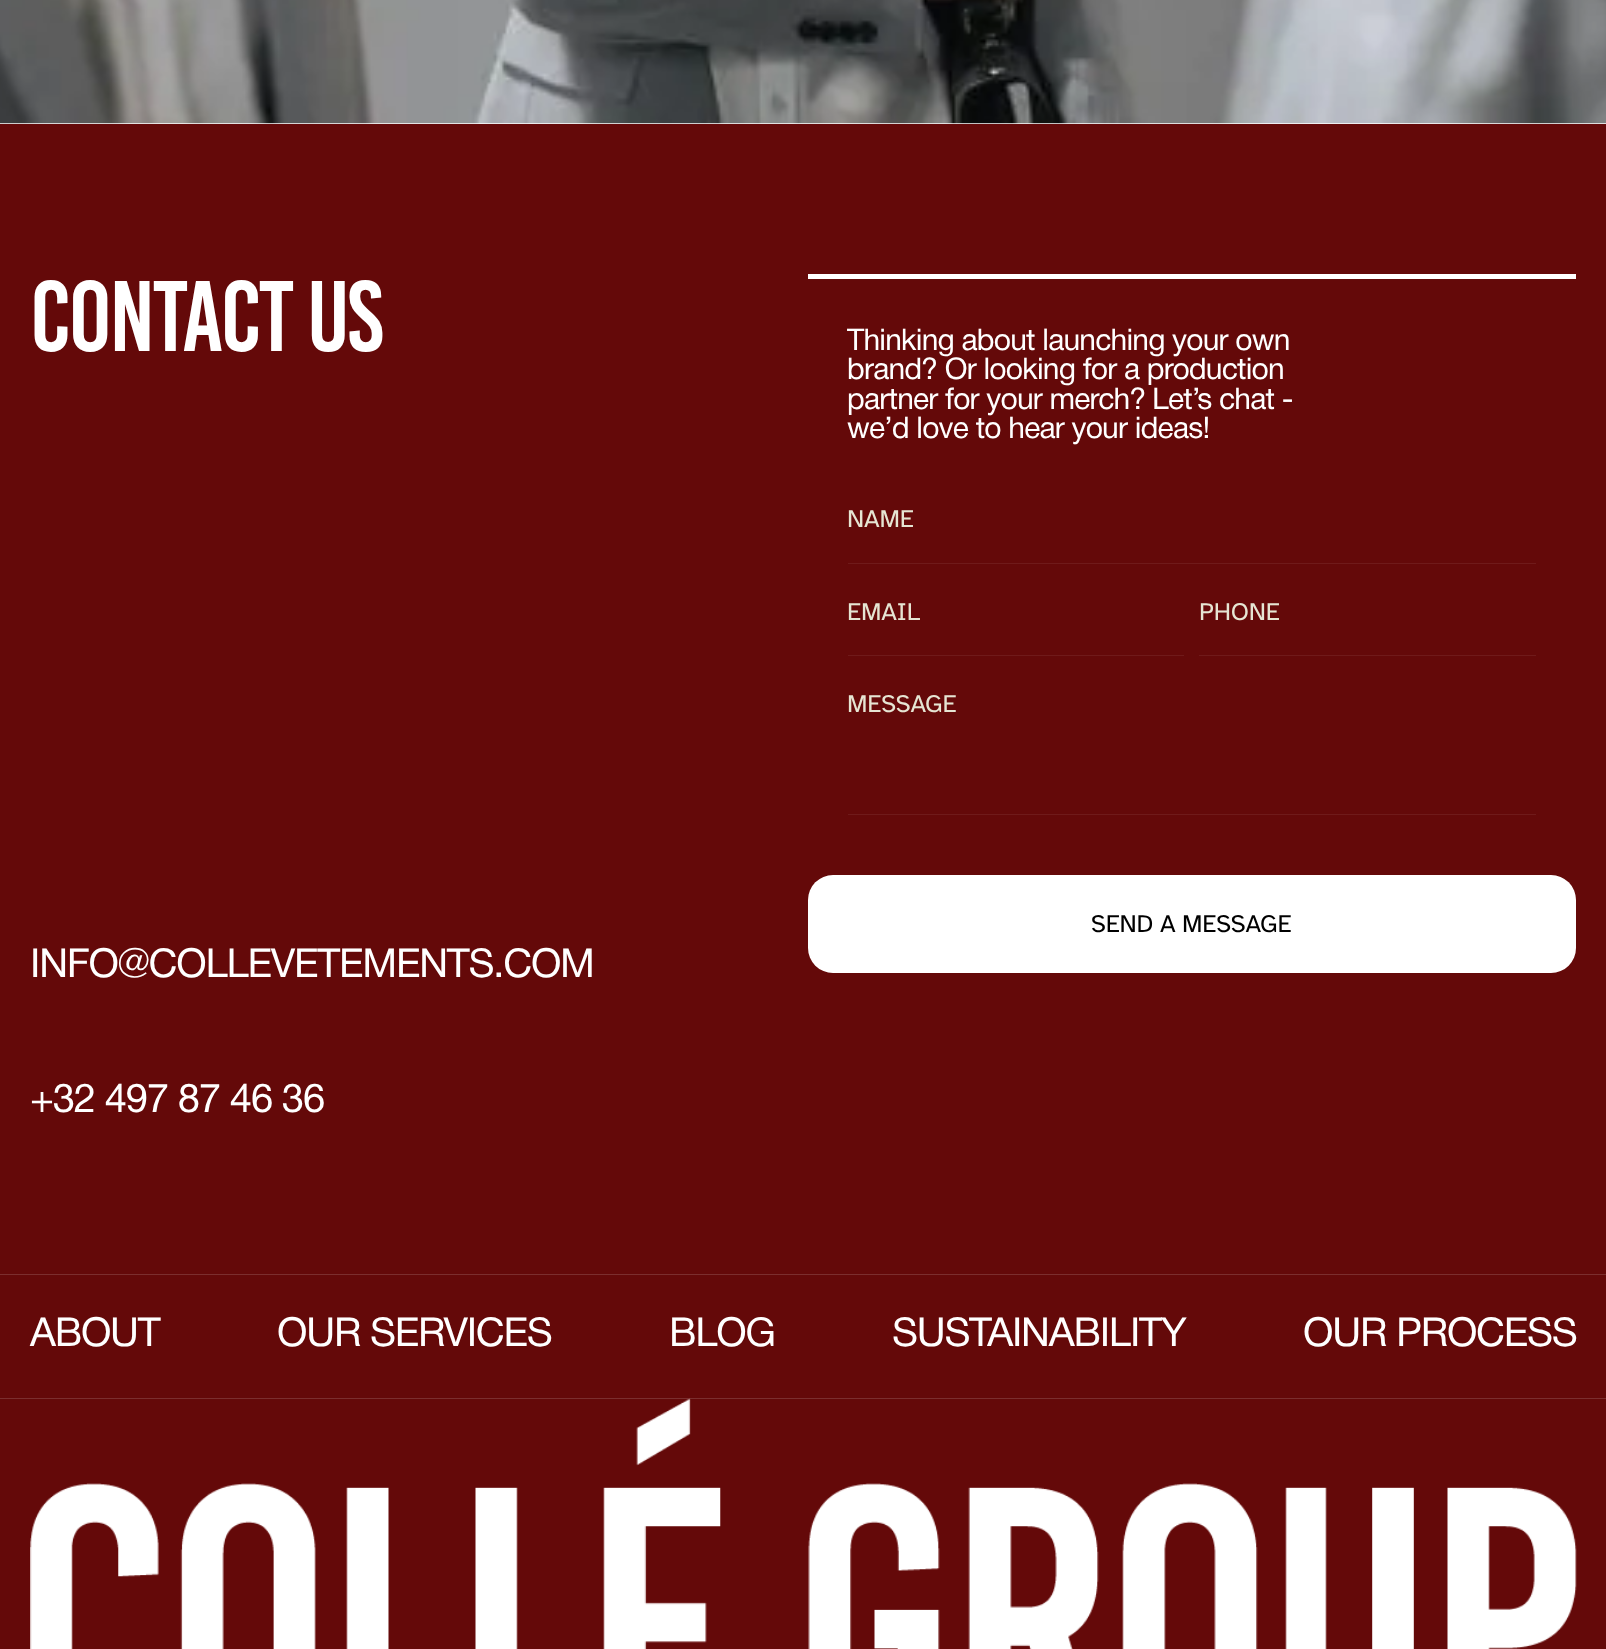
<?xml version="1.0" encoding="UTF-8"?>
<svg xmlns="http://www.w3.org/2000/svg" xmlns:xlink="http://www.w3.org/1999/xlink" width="1606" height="1649">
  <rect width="100%" height="100%" fill="#ffffff" />
  <image x="0" y="0" width="1606" height="124" xlink:href="image1.png" />
  <rect y="124" width="1606" height="1525" fill="#640909" />
  <rect x="808" y="274" width="768" height="5" fill="#ffffff" />
  <rect x="848" y="563" width="688" height="1" fill="#6f1a1a" />
  <rect x="848" y="655" width="336" height="1" fill="#6f1a1a" />
  <rect x="1199" y="655" width="337" height="1" fill="#6f1a1a" />
  <rect x="848" y="814" width="688" height="1" fill="#6f1a1a" />
  <rect x="808" y="875" width="768" height="98" rx="25" fill="#ffffff" />
  <rect y="1274" width="1606" height="1" fill="#7b2e2e" />
  <rect y="1398" width="1606" height="1" fill="#7b2e2e" />
  <image x="30" y="1398" width="1547" height="251" xlink:href="image2.png" />
  <text x="30" y="351" style="font-family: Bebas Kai; font-size: 100px; letter-spacing: -2.5px; fill: #ffffff">CONTACT US</text>
  <text x="30" y="977" style="font-family: Helvetica Neue; font-size: 40px; letter-spacing: -1.2px; fill: #ffffff">INFO@COLLEVETEMENTS.COM</text>
  <text x="30" y="1112" style="font-family: Helvetica Neue; font-size: 40px; letter-spacing: -1.2px; fill: #ffffff">+32 497 87 46 36</text>
  <text x="847" y="350" style="font-family: Helvetica Neue; font-size: 30px; letter-spacing: -0.8px; fill: #ffffff">Thinking about launching your own</text>
  <text x="847" y="379" style="font-family: Helvetica Neue; font-size: 30px; letter-spacing: -0.8px; fill: #ffffff">brand? Or looking for a production</text>
  <text x="847" y="409" style="font-family: Helvetica Neue; font-size: 30px; letter-spacing: -0.8px; fill: #ffffff">partner for your merch?  Let’s chat -</text>
  <text x="847" y="438" style="font-family: Helvetica Neue; font-size: 30px; letter-spacing: -0.8px; fill: #ffffff">we’d love to hear your ideas!</text>
  <text x="847" y="527" style="font-family: Atkinson Hyperlegible; font-size: 25px; letter-spacing: -0.25px; fill: #e6e5d3">NAME</text>
  <text x="847" y="620" style="font-family: Atkinson Hyperlegible; font-size: 25px; letter-spacing: -0.25px; fill: #e6e5d3">EMAIL</text>
  <text x="1199" y="620" style="font-family: Atkinson Hyperlegible; font-size: 25px; letter-spacing: -0.25px; fill: #e6e5d3">PHONE</text>
  <text x="847" y="712" style="font-family: Atkinson Hyperlegible; font-size: 25px; letter-spacing: -0.25px; fill: #e6e5d3">MESSAGE</text>
  <text x="1091" y="932" style="font-family: Atkinson Hyperlegible; font-size: 25px; letter-spacing: -0.25px; fill: #000000">SEND A MESSAGE</text>
  <text x="30" y="1346" style="font-family: Helvetica Neue; font-size: 40px; letter-spacing: -1.2px; fill: #ffffff">ABOUT</text>
  <text x="277" y="1346" style="font-family: Helvetica Neue; font-size: 40px; letter-spacing: -1.2px; fill: #ffffff">OUR SERVICES</text>
  <text x="669" y="1346" style="font-family: Helvetica Neue; font-size: 40px; letter-spacing: -1.2px; fill: #ffffff">BLOG</text>
  <text x="892" y="1346" style="font-family: Helvetica Neue; font-size: 40px; letter-spacing: -1.2px; fill: #ffffff">SUSTAINABILITY</text>
  <text x="1303" y="1346" style="font-family: Helvetica Neue; font-size: 40px; letter-spacing: -1.2px; fill: #ffffff">OUR PROCESS</text>
</svg>
